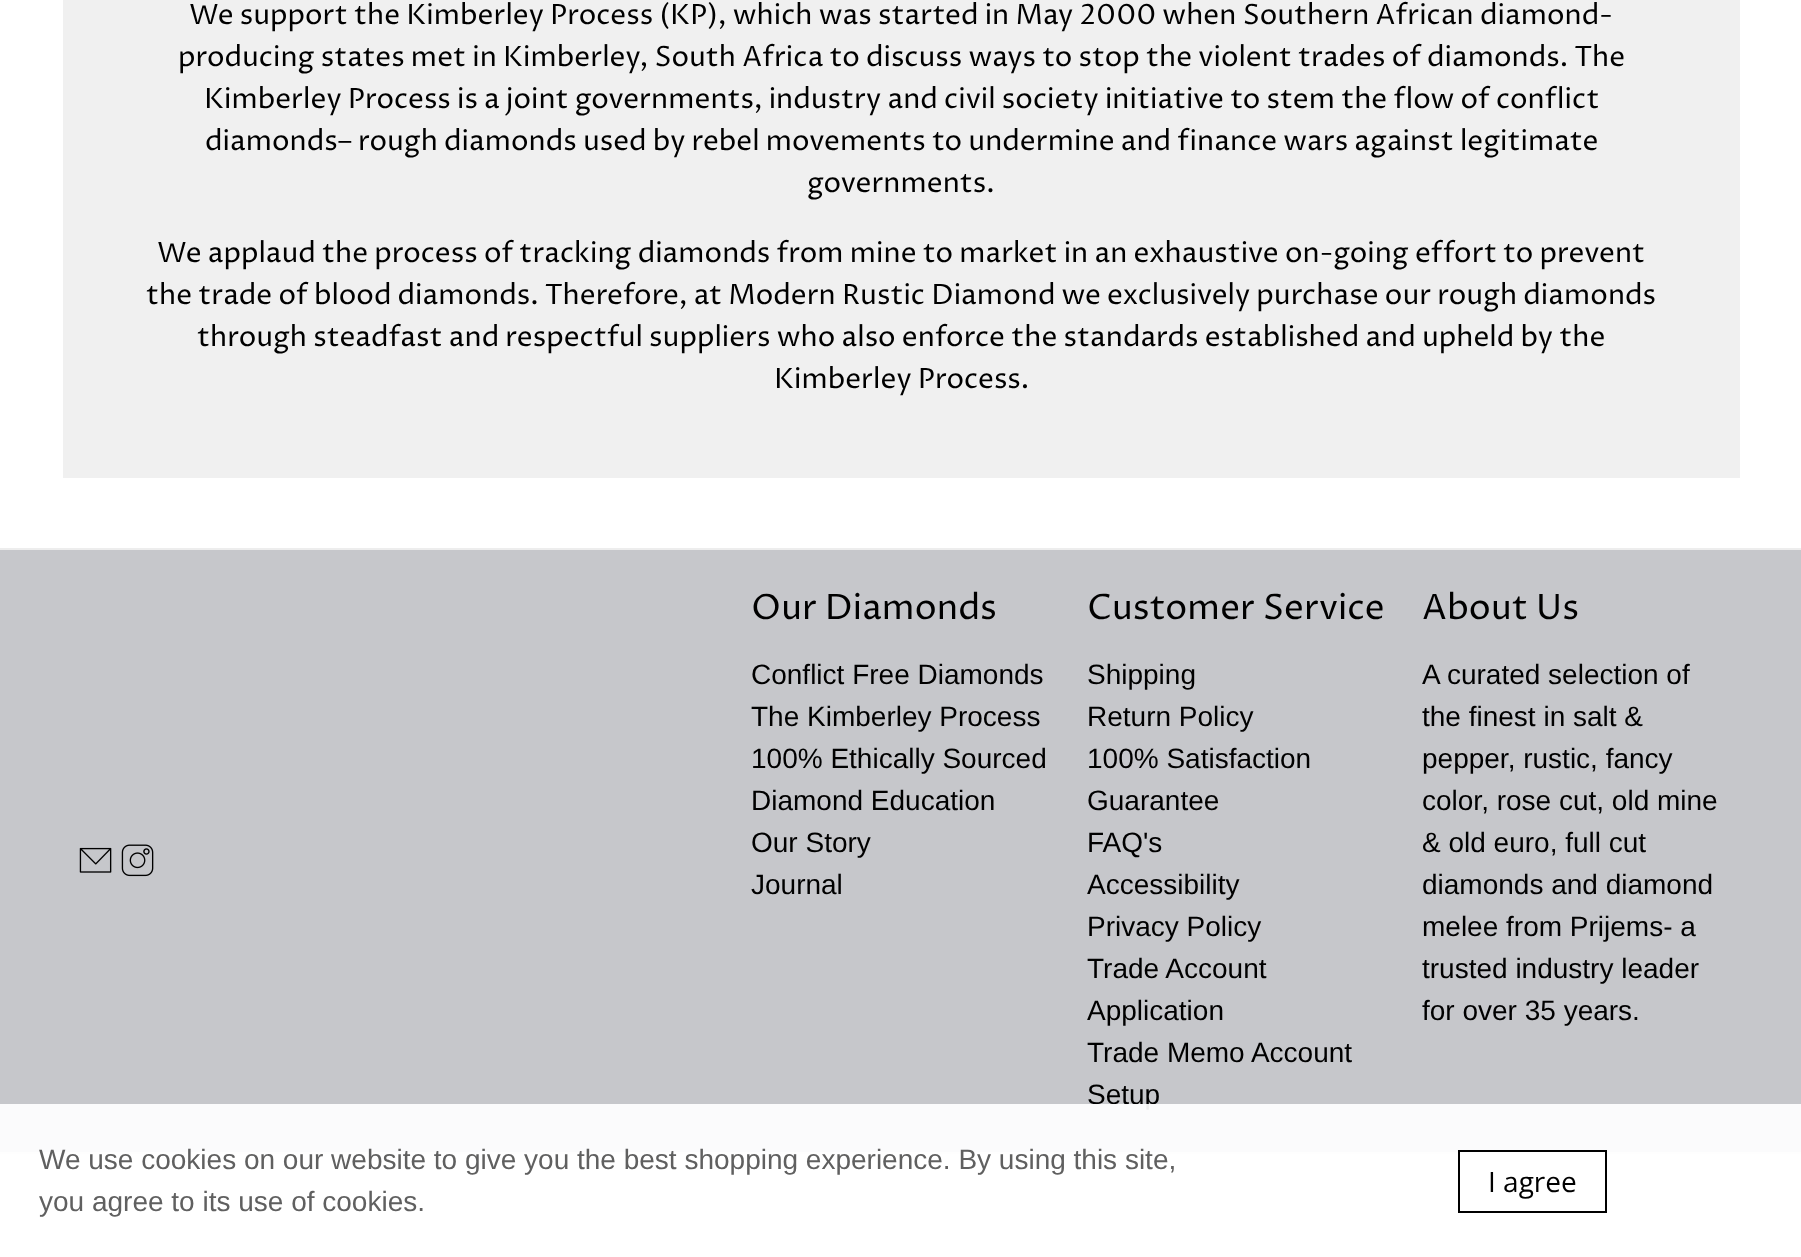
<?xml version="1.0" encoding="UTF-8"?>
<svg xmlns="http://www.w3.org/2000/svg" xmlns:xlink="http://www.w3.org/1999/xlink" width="1801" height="1257">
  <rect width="100%" height="100%" fill="#ffffff" />
  <rect x="63" width="1677" height="478" fill="#f0f0f0" />
  <rect y="550" width="1801" height="602" fill="#c6c7cb" />
  <rect y="548" width="1801" height="2" fill="#ededed" />
  <rect y="1152" width="1801" height="2" fill="#ededed" />
  <image x="79" y="847" width="33" height="26" xlink:href="image1.png" />
  <image x="121" y="844" width="33" height="33" xlink:href="image2.png" />
  <text x="189" y="24" style="font-family: Proza Libre; font-size: 28px; fill: #000000">We support the Kimberley Process (KP), which was started in May 2000 when Southern African diamond-</text>
  <text x="178" y="66" style="font-family: Proza Libre; font-size: 28px; fill: #000000">producing states met in Kimberley, South Africa to discuss ways to stop the violent trades of diamonds. The</text>
  <text x="204" y="108" style="font-family: Proza Libre; font-size: 28px; fill: #000000">Kimberley Process is a joint governments, industry and civil society initiative to stem the flow of conflict</text>
  <text x="205" y="150" style="font-family: Proza Libre; font-size: 28px; fill: #000000">diamonds– rough diamonds used by rebel movements to undermine and finance wars against legitimate</text>
  <text x="807" y="192" style="font-family: Proza Libre; font-size: 28px; fill: #000000">governments.</text>
  <text x="157" y="262" style="font-family: Proza Libre; font-size: 28px; fill: #000000">We applaud the process of tracking diamonds from mine to market in an exhaustive on-going effort to prevent</text>
  <text x="146" y="304" style="font-family: Proza Libre; font-size: 28px; fill: #000000">the trade of blood diamonds. Therefore, at Modern Rustic Diamond we exclusively purchase our rough diamonds</text>
  <text x="197" y="346" style="font-family: Proza Libre; font-size: 28px; fill: #000000">through steadfast and respectful suppliers who also enforce the standards established and upheld by the</text>
  <text x="774" y="388" style="font-family: Proza Libre; font-size: 28px; fill: #000000">Kimberley Process.</text>
  <text x="751" y="619" style="font-family: Proza Libre; font-size: 35px; fill: #000000">Our Diamonds</text>
  <text x="751" y="684" style="font-family: Liberation Sans; font-size: 28px; fill: #000000">Conflict Free Diamonds</text>
  <text x="751" y="726" style="font-family: Liberation Sans; font-size: 28px; fill: #000000">The Kimberley Process</text>
  <text x="751" y="768" style="font-family: Liberation Sans; font-size: 28px; fill: #000000">100% Ethically Sourced</text>
  <text x="751" y="810" style="font-family: Liberation Sans; font-size: 28px; fill: #000000">Diamond Education</text>
  <text x="751" y="852" style="font-family: Liberation Sans; font-size: 28px; fill: #000000">Our Story</text>
  <text x="751" y="894" style="font-family: Liberation Sans; font-size: 28px; fill: #000000">Journal</text>
  <text x="1087" y="619" style="font-family: Proza Libre; font-size: 35px; fill: #000000">Customer Service</text>
  <text x="1087" y="684" style="font-family: Liberation Sans; font-size: 28px; fill: #000000">Shipping</text>
  <text x="1087" y="726" style="font-family: Liberation Sans; font-size: 28px; fill: #000000">Return Policy</text>
  <text x="1087" y="768" style="font-family: Liberation Sans; font-size: 28px; fill: #000000">100% Satisfaction</text>
  <text x="1087" y="810" style="font-family: Liberation Sans; font-size: 28px; fill: #000000">Guarantee</text>
  <text x="1087" y="852" style="font-family: Liberation Sans; font-size: 28px; fill: #000000">FAQ's</text>
  <text x="1087" y="894" style="font-family: Liberation Sans; font-size: 28px; fill: #000000">Accessibility</text>
  <text x="1087" y="936" style="font-family: Liberation Sans; font-size: 28px; fill: #000000">Privacy Policy</text>
  <text x="1087" y="978" style="font-family: Liberation Sans; font-size: 28px; fill: #000000">Trade Account</text>
  <text x="1087" y="1020" style="font-family: Liberation Sans; font-size: 28px; fill: #000000">Application</text>
  <text x="1087" y="1062" style="font-family: Liberation Sans; font-size: 28px; fill: #000000">Trade Memo Account</text>
  <text x="1087" y="1104" style="font-family: Liberation Sans; font-size: 28px; fill: #000000">Setup</text>
  <text x="1422" y="619" style="font-family: Proza Libre; font-size: 35px; fill: #000000">About Us</text>
  <text x="1422" y="684" style="font-family: Liberation Sans; font-size: 28px; fill: #000000">A curated selection of</text>
  <text x="1422" y="726" style="font-family: Liberation Sans; font-size: 28px; fill: #000000">the finest in salt &amp;</text>
  <text x="1422" y="768" style="font-family: Liberation Sans; font-size: 28px; fill: #000000">pepper, rustic, fancy</text>
  <text x="1422" y="810" style="font-family: Liberation Sans; font-size: 28px; fill: #000000">color, rose cut, old mine</text>
  <text x="1422" y="852" style="font-family: Liberation Sans; font-size: 28px; fill: #000000">&amp; old euro, full cut</text>
  <text x="1422" y="894" style="font-family: Liberation Sans; font-size: 28px; fill: #000000">diamonds and diamond</text>
  <text x="1422" y="936" style="font-family: Liberation Sans; font-size: 28px; fill: #000000">melee from Prijems- a</text>
  <text x="1422" y="978" style="font-family: Liberation Sans; font-size: 28px; fill: #000000">trusted industry leader</text>
  <text x="1422" y="1020" style="font-family: Liberation Sans; font-size: 28px; fill: #000000">for over 35 years.</text>
  <rect y="1104" width="1801" height="50" fill="#ffffff" fill-opacity="0.93" />
  <text x="39" y="1169" style="font-family: Liberation Sans; font-size: 28px; fill: #606060">We use cookies on our website to give you the best shopping experience. By using this site,</text>
  <text x="39" y="1211" style="font-family: Liberation Sans; font-size: 28px; fill: #606060">you agree to its use of cookies.</text>
  <rect x="1459" y="1151" width="147" height="61" fill="none" stroke="#000000" stroke-width="2" />
  <text x="1488" y="1192" style="font-family: Open Sans; font-size: 28px; fill: #000000">I agree</text>
</svg>
